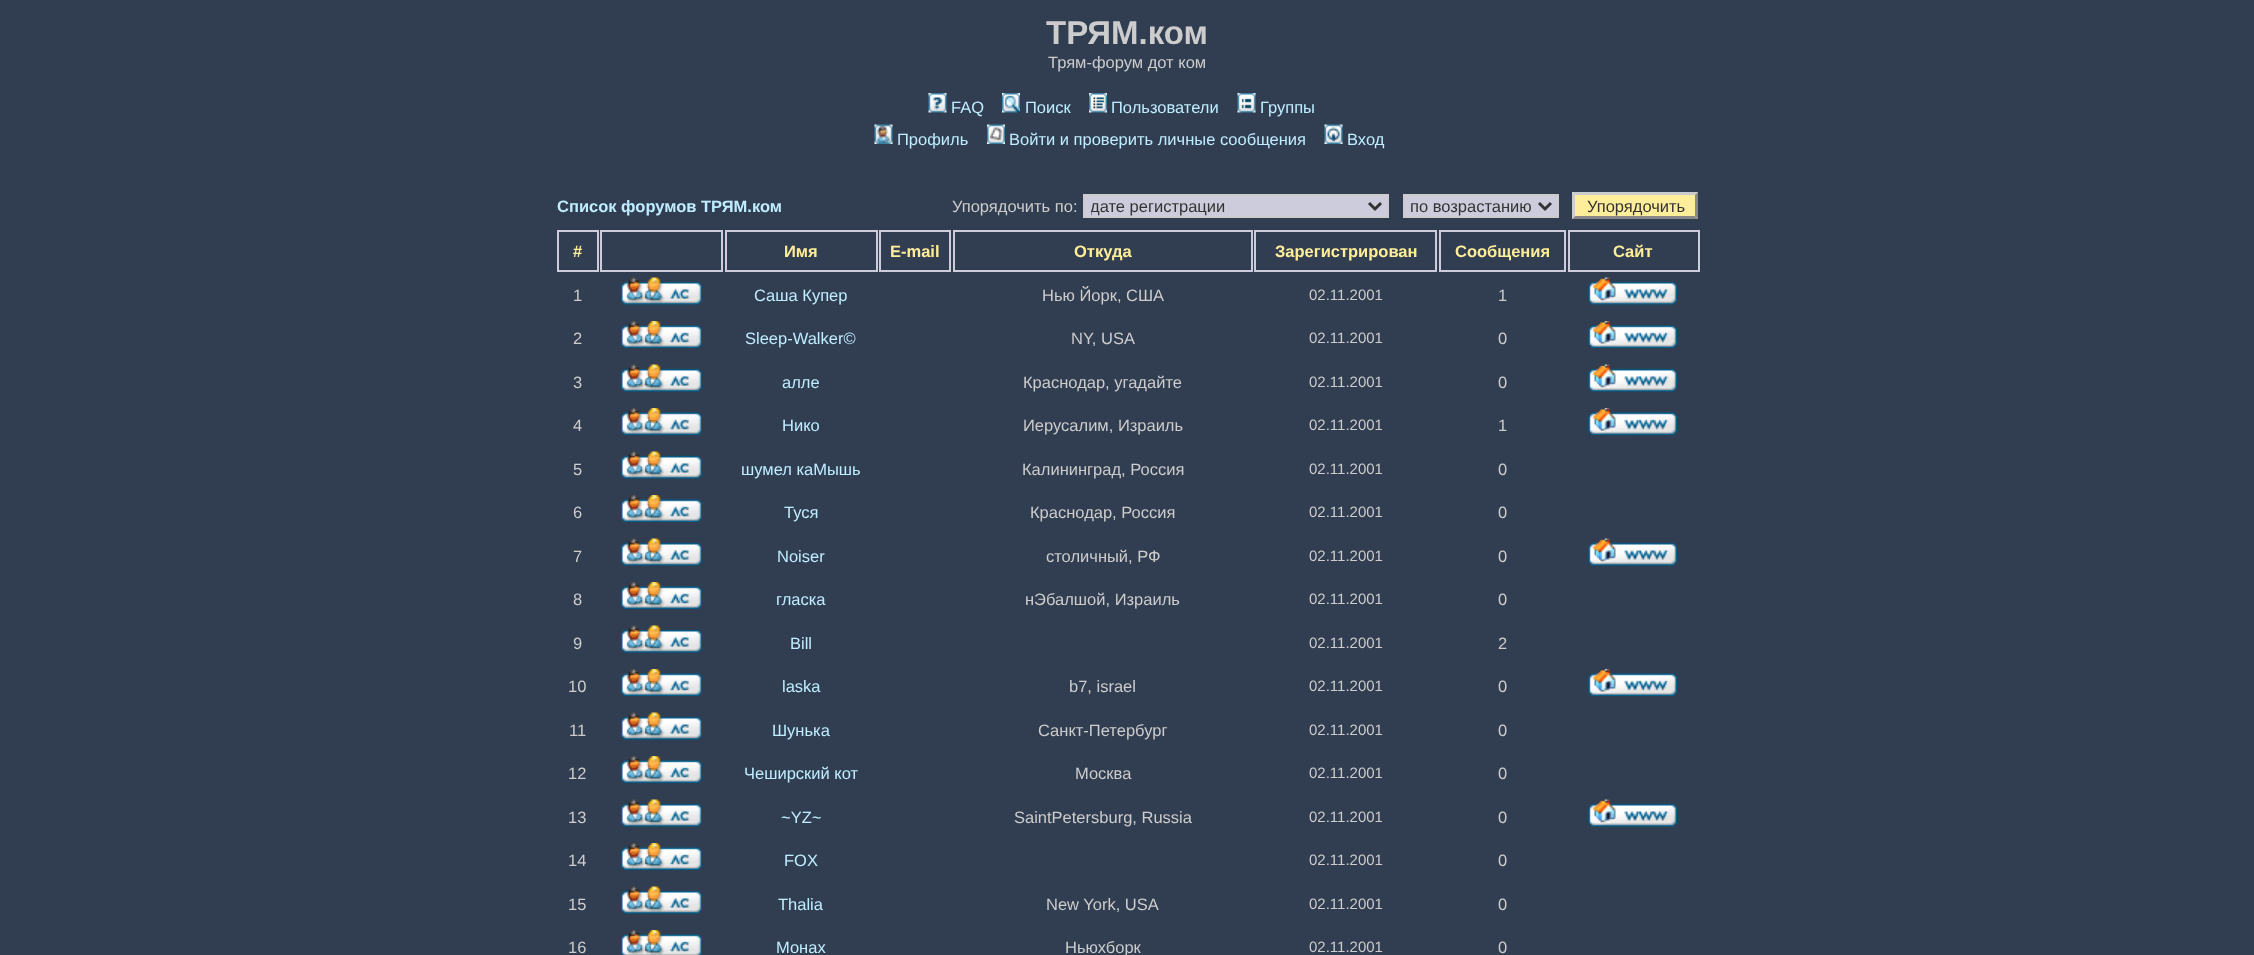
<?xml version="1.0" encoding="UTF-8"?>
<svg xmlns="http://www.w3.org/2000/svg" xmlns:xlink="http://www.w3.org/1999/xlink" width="2254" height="955">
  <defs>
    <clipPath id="clip1"><rect x="1091" y="195" width="273" height="21" /></clipPath>
  </defs>
  <rect width="100%" height="100%" fill="#313e51" />
  <image x="928" y="93" width="19" height="20" xlink:href="image1.png" />
  <image x="1002" y="93" width="18" height="20" xlink:href="image2.png" />
  <image x="1089" y="93" width="18" height="20" xlink:href="image3.png" />
  <image x="1237" y="93" width="19" height="20" xlink:href="image4.png" />
  <image x="874" y="124" width="19" height="20" xlink:href="image5.png" />
  <image x="987" y="124" width="18" height="20" xlink:href="image6.png" />
  <image x="1324" y="124" width="19" height="20" xlink:href="image7.png" />
  <rect x="1084" y="195" width="304" height="22" fill="#ccccdd" stroke="#cccccc" stroke-width="2" />
  <path d="M 1369 203 l 6 6 l 6 -6" fill="none" stroke="#333333" stroke-width="3" />
  <rect x="1404" y="195" width="154" height="22" fill="#ccccdd" stroke="#cccccc" stroke-width="2" />
  <path d="M 1539 203 l 6 6 l 6 -6" fill="none" stroke="#333333" stroke-width="3" />
  <rect x="1572" y="192" width="126" height="27" fill="#ffee99" />
  <path d="M 1572 192 h 126 l -3 3 h -120 z" fill="#cccccc" />
  <path d="M 1698 192 v 27 l -3 -3 v -21 z" fill="#888888" />
  <path d="M 1698 219 h -126 l 3 -3 h 120 z" fill="#888888" />
  <path d="M 1572 219 v -27 l 3 3 v 21 z" fill="#cccccc" />
  <rect x="558" y="231" width="40" height="40" fill="none" stroke="#ccccdd" stroke-width="2" />
  <rect x="601" y="231" width="121" height="40" fill="none" stroke="#ccccdd" stroke-width="2" />
  <rect x="726" y="231" width="151" height="40" fill="none" stroke="#ccccdd" stroke-width="2" />
  <rect x="880" y="231" width="70" height="40" fill="none" stroke="#ccccdd" stroke-width="2" />
  <rect x="954" y="231" width="298" height="40" fill="none" stroke="#ccccdd" stroke-width="2" />
  <rect x="1255" y="231" width="181" height="40" fill="none" stroke="#ccccdd" stroke-width="2" />
  <rect x="1440" y="231" width="125" height="40" fill="none" stroke="#ccccdd" stroke-width="2" />
  <rect x="1569" y="231" width="130" height="40" fill="none" stroke="#ccccdd" stroke-width="2" />
  <image x="621" y="277" width="81" height="28" xlink:href="image8.png" />
  <image x="1588" y="277" width="89" height="28" xlink:href="image9.png" />
  <image x="621" y="321" width="81" height="27" xlink:href="image10.png" />
  <image x="1588" y="321" width="89" height="27" xlink:href="image11.png" />
  <image x="621" y="364" width="81" height="28" xlink:href="image8.png" />
  <image x="1588" y="364" width="89" height="28" xlink:href="image9.png" />
  <image x="621" y="408" width="81" height="27" xlink:href="image10.png" />
  <image x="1588" y="408" width="89" height="27" xlink:href="image11.png" />
  <image x="621" y="451" width="81" height="28" xlink:href="image8.png" />
  <image x="621" y="495" width="81" height="27" xlink:href="image10.png" />
  <image x="621" y="538" width="81" height="28" xlink:href="image8.png" />
  <image x="1588" y="538" width="89" height="28" xlink:href="image9.png" />
  <image x="621" y="582" width="81" height="27" xlink:href="image10.png" />
  <image x="621" y="625" width="81" height="28" xlink:href="image8.png" />
  <image x="621" y="669" width="81" height="27" xlink:href="image10.png" />
  <image x="1588" y="669" width="89" height="27" xlink:href="image11.png" />
  <image x="621" y="712" width="81" height="28" xlink:href="image8.png" />
  <image x="621" y="756" width="81" height="27" xlink:href="image10.png" />
  <image x="621" y="799" width="81" height="28" xlink:href="image8.png" />
  <image x="1588" y="799" width="89" height="28" xlink:href="image9.png" />
  <image x="621" y="843" width="81" height="27" xlink:href="image10.png" />
  <image x="621" y="886" width="81" height="28" xlink:href="image8.png" />
  <image x="621" y="930" width="81" height="25" xlink:href="image12.png" />
  <text x="1046" y="44" style="font-family: Liberation Sans; font-size: 33px; font-weight: bold; fill: #cccccc">ТРЯМ.ком</text>
  <text x="1048" y="68" style="font-family: Liberation Sans; font-size: 16.5px; fill: #cccccc">Трям-форум дот ком</text>
  <text x="951" y="113" style="font-family: Liberation Sans; font-size: 16.5px; fill: #bfedff">FAQ</text>
  <text x="1025" y="113" style="font-family: Liberation Sans; font-size: 16.5px; fill: #bfedff">Поиск</text>
  <text x="1111" y="113" style="font-family: Liberation Sans; font-size: 16.5px; fill: #bfedff">Пользователи</text>
  <text x="1260" y="113" style="font-family: Liberation Sans; font-size: 16.5px; fill: #bfedff">Группы</text>
  <text x="897" y="145" style="font-family: Liberation Sans; font-size: 16.5px; fill: #bfedff">Профиль</text>
  <text x="1009" y="145" style="font-family: Liberation Sans; font-size: 16.5px; fill: #bfedff">Войти и проверить личные сообщения</text>
  <text x="1347" y="145" style="font-family: Liberation Sans; font-size: 16.5px; fill: #bfedff">Вход</text>
  <text x="557" y="212" style="font-family: Liberation Sans; font-size: 16.5px; font-weight: bold; fill: #bfedff">Список форумов ТРЯМ.ком</text>
  <text x="952" y="212" style="font-family: Liberation Sans; font-size: 16.5px; fill: #cccccc">Упорядочить по:</text>
  <g clip-path="url(#clip1)">
    <text x="1090" y="212" style="font-family: Liberation Sans; font-size: 16.5px; fill: #333333">дате регистрации</text>
  </g>
  <text x="1410" y="212" style="font-family: Liberation Sans; font-size: 16.5px; fill: #333333">по возрастанию</text>
  <text x="1587" y="212" style="font-family: Liberation Sans; font-size: 16.5px; fill: #333333">Упорядочить</text>
  <text x="573" y="257" style="font-family: Liberation Sans; font-size: 16.5px; font-weight: bold; fill: #ffee99">#</text>
  <text x="784" y="257" style="font-family: Liberation Sans; font-size: 16.5px; font-weight: bold; fill: #ffee99">Имя</text>
  <text x="890" y="257" style="font-family: Liberation Sans; font-size: 16.5px; font-weight: bold; fill: #ffee99">E-mail</text>
  <text x="1074" y="257" style="font-family: Liberation Sans; font-size: 16.5px; font-weight: bold; fill: #ffee99">Откуда</text>
  <text x="1275" y="257" style="font-family: Liberation Sans; font-size: 16.5px; font-weight: bold; fill: #ffee99">Зарегистрирован</text>
  <text x="1455" y="257" style="font-family: Liberation Sans; font-size: 16.5px; font-weight: bold; fill: #ffee99">Сообщения</text>
  <text x="1613" y="257" style="font-family: Liberation Sans; font-size: 16.5px; font-weight: bold; fill: #ffee99">Сайт</text>
  <text x="573" y="301" style="font-family: Liberation Sans; font-size: 16.5px; fill: #cccccc">1</text>
  <text x="754" y="301" style="font-family: Liberation Sans; font-size: 16.5px; fill: #bfedff">Саша Купер</text>
  <text x="1042" y="301" style="font-family: Liberation Sans; font-size: 16.5px; fill: #cccccc">Нью Йорк, США</text>
  <text x="1309" y="300" style="font-family: Liberation Sans; font-size: 15px; fill: #cccccc">02.11.2001</text>
  <text x="1498" y="301" style="font-family: Liberation Sans; font-size: 16.5px; fill: #cccccc">1</text>
  <text x="573" y="344" style="font-family: Liberation Sans; font-size: 16.5px; fill: #cccccc">2</text>
  <text x="745" y="344" style="font-family: Liberation Sans; font-size: 16.5px; fill: #bfedff">Sleep-Walker©</text>
  <text x="1071" y="344" style="font-family: Liberation Sans; font-size: 16.5px; fill: #cccccc">NY, USA</text>
  <text x="1309" y="343" style="font-family: Liberation Sans; font-size: 15px; fill: #cccccc">02.11.2001</text>
  <text x="1498" y="344" style="font-family: Liberation Sans; font-size: 16.5px; fill: #cccccc">0</text>
  <text x="573" y="388" style="font-family: Liberation Sans; font-size: 16.5px; fill: #cccccc">3</text>
  <text x="782" y="388" style="font-family: Liberation Sans; font-size: 16.5px; fill: #bfedff">алле</text>
  <text x="1023" y="388" style="font-family: Liberation Sans; font-size: 16.5px; fill: #cccccc">Краснодар, угадайте</text>
  <text x="1309" y="387" style="font-family: Liberation Sans; font-size: 15px; fill: #cccccc">02.11.2001</text>
  <text x="1498" y="388" style="font-family: Liberation Sans; font-size: 16.5px; fill: #cccccc">0</text>
  <text x="573" y="431" style="font-family: Liberation Sans; font-size: 16.5px; fill: #cccccc">4</text>
  <text x="782" y="431" style="font-family: Liberation Sans; font-size: 16.5px; fill: #bfedff">Нико</text>
  <text x="1023" y="431" style="font-family: Liberation Sans; font-size: 16.5px; fill: #cccccc">Иерусалим, Израиль</text>
  <text x="1309" y="430" style="font-family: Liberation Sans; font-size: 15px; fill: #cccccc">02.11.2001</text>
  <text x="1498" y="431" style="font-family: Liberation Sans; font-size: 16.5px; fill: #cccccc">1</text>
  <text x="573" y="475" style="font-family: Liberation Sans; font-size: 16.5px; fill: #cccccc">5</text>
  <text x="741" y="475" style="font-family: Liberation Sans; font-size: 16.5px; fill: #bfedff">шумел каМышь</text>
  <text x="1022" y="475" style="font-family: Liberation Sans; font-size: 16.5px; fill: #cccccc">Калининград, Россия</text>
  <text x="1309" y="474" style="font-family: Liberation Sans; font-size: 15px; fill: #cccccc">02.11.2001</text>
  <text x="1498" y="475" style="font-family: Liberation Sans; font-size: 16.5px; fill: #cccccc">0</text>
  <text x="573" y="518" style="font-family: Liberation Sans; font-size: 16.5px; fill: #cccccc">6</text>
  <text x="784" y="518" style="font-family: Liberation Sans; font-size: 16.5px; fill: #bfedff">Туся</text>
  <text x="1030" y="518" style="font-family: Liberation Sans; font-size: 16.5px; fill: #cccccc">Краснодар, Россия</text>
  <text x="1309" y="517" style="font-family: Liberation Sans; font-size: 15px; fill: #cccccc">02.11.2001</text>
  <text x="1498" y="518" style="font-family: Liberation Sans; font-size: 16.5px; fill: #cccccc">0</text>
  <text x="573" y="562" style="font-family: Liberation Sans; font-size: 16.5px; fill: #cccccc">7</text>
  <text x="777" y="562" style="font-family: Liberation Sans; font-size: 16.5px; fill: #bfedff">Noiser</text>
  <text x="1046" y="562" style="font-family: Liberation Sans; font-size: 16.5px; fill: #cccccc">столичный, РФ</text>
  <text x="1309" y="561" style="font-family: Liberation Sans; font-size: 15px; fill: #cccccc">02.11.2001</text>
  <text x="1498" y="562" style="font-family: Liberation Sans; font-size: 16.5px; fill: #cccccc">0</text>
  <text x="573" y="605" style="font-family: Liberation Sans; font-size: 16.5px; fill: #cccccc">8</text>
  <text x="776" y="605" style="font-family: Liberation Sans; font-size: 16.5px; fill: #bfedff">гласка</text>
  <text x="1025" y="605" style="font-family: Liberation Sans; font-size: 16.5px; fill: #cccccc">нЭбалшой, Израиль</text>
  <text x="1309" y="604" style="font-family: Liberation Sans; font-size: 15px; fill: #cccccc">02.11.2001</text>
  <text x="1498" y="605" style="font-family: Liberation Sans; font-size: 16.5px; fill: #cccccc">0</text>
  <text x="573" y="649" style="font-family: Liberation Sans; font-size: 16.5px; fill: #cccccc">9</text>
  <text x="790" y="649" style="font-family: Liberation Sans; font-size: 16.5px; fill: #bfedff">Bill</text>
  <text x="1309" y="648" style="font-family: Liberation Sans; font-size: 15px; fill: #cccccc">02.11.2001</text>
  <text x="1498" y="649" style="font-family: Liberation Sans; font-size: 16.5px; fill: #cccccc">2</text>
  <text x="568" y="692" style="font-family: Liberation Sans; font-size: 16.5px; fill: #cccccc">10</text>
  <text x="782" y="692" style="font-family: Liberation Sans; font-size: 16.5px; fill: #bfedff">laska</text>
  <text x="1069" y="692" style="font-family: Liberation Sans; font-size: 16.5px; fill: #cccccc">b7, israel</text>
  <text x="1309" y="691" style="font-family: Liberation Sans; font-size: 15px; fill: #cccccc">02.11.2001</text>
  <text x="1498" y="692" style="font-family: Liberation Sans; font-size: 16.5px; fill: #cccccc">0</text>
  <text x="569" y="736" style="font-family: Liberation Sans; font-size: 16.5px; fill: #cccccc">11</text>
  <text x="772" y="736" style="font-family: Liberation Sans; font-size: 16.5px; fill: #bfedff">Шунька</text>
  <text x="1038" y="736" style="font-family: Liberation Sans; font-size: 16.5px; fill: #cccccc">Санкт-Петербург</text>
  <text x="1309" y="735" style="font-family: Liberation Sans; font-size: 15px; fill: #cccccc">02.11.2001</text>
  <text x="1498" y="736" style="font-family: Liberation Sans; font-size: 16.5px; fill: #cccccc">0</text>
  <text x="568" y="779" style="font-family: Liberation Sans; font-size: 16.5px; fill: #cccccc">12</text>
  <text x="744" y="779" style="font-family: Liberation Sans; font-size: 16.5px; fill: #bfedff">Чеширский кот</text>
  <text x="1075" y="779" style="font-family: Liberation Sans; font-size: 16.5px; fill: #cccccc">Москва</text>
  <text x="1309" y="778" style="font-family: Liberation Sans; font-size: 15px; fill: #cccccc">02.11.2001</text>
  <text x="1498" y="779" style="font-family: Liberation Sans; font-size: 16.5px; fill: #cccccc">0</text>
  <text x="568" y="823" style="font-family: Liberation Sans; font-size: 16.5px; fill: #cccccc">13</text>
  <text x="781" y="823" style="font-family: Liberation Sans; font-size: 16.5px; fill: #bfedff">~YZ~</text>
  <text x="1014" y="823" style="font-family: Liberation Sans; font-size: 16.5px; fill: #cccccc">SaintPetersburg, Russia</text>
  <text x="1309" y="822" style="font-family: Liberation Sans; font-size: 15px; fill: #cccccc">02.11.2001</text>
  <text x="1498" y="823" style="font-family: Liberation Sans; font-size: 16.5px; fill: #cccccc">0</text>
  <text x="568" y="866" style="font-family: Liberation Sans; font-size: 16.5px; fill: #cccccc">14</text>
  <text x="784" y="866" style="font-family: Liberation Sans; font-size: 16.5px; fill: #bfedff">FOX</text>
  <text x="1309" y="865" style="font-family: Liberation Sans; font-size: 15px; fill: #cccccc">02.11.2001</text>
  <text x="1498" y="866" style="font-family: Liberation Sans; font-size: 16.5px; fill: #cccccc">0</text>
  <text x="568" y="910" style="font-family: Liberation Sans; font-size: 16.5px; fill: #cccccc">15</text>
  <text x="778" y="910" style="font-family: Liberation Sans; font-size: 16.5px; fill: #bfedff">Thalia</text>
  <text x="1046" y="910" style="font-family: Liberation Sans; font-size: 16.5px; fill: #cccccc">New York, USA</text>
  <text x="1309" y="909" style="font-family: Liberation Sans; font-size: 15px; fill: #cccccc">02.11.2001</text>
  <text x="1498" y="910" style="font-family: Liberation Sans; font-size: 16.5px; fill: #cccccc">0</text>
  <text x="568" y="953" style="font-family: Liberation Sans; font-size: 16.5px; fill: #cccccc">16</text>
  <text x="776" y="953" style="font-family: Liberation Sans; font-size: 16.5px; fill: #bfedff">Монах</text>
  <text x="1065" y="953" style="font-family: Liberation Sans; font-size: 16.5px; fill: #cccccc">Ньюхборк</text>
  <text x="1309" y="952" style="font-family: Liberation Sans; font-size: 15px; fill: #cccccc">02.11.2001</text>
  <text x="1498" y="953" style="font-family: Liberation Sans; font-size: 16.5px; fill: #cccccc">0</text>
</svg>
